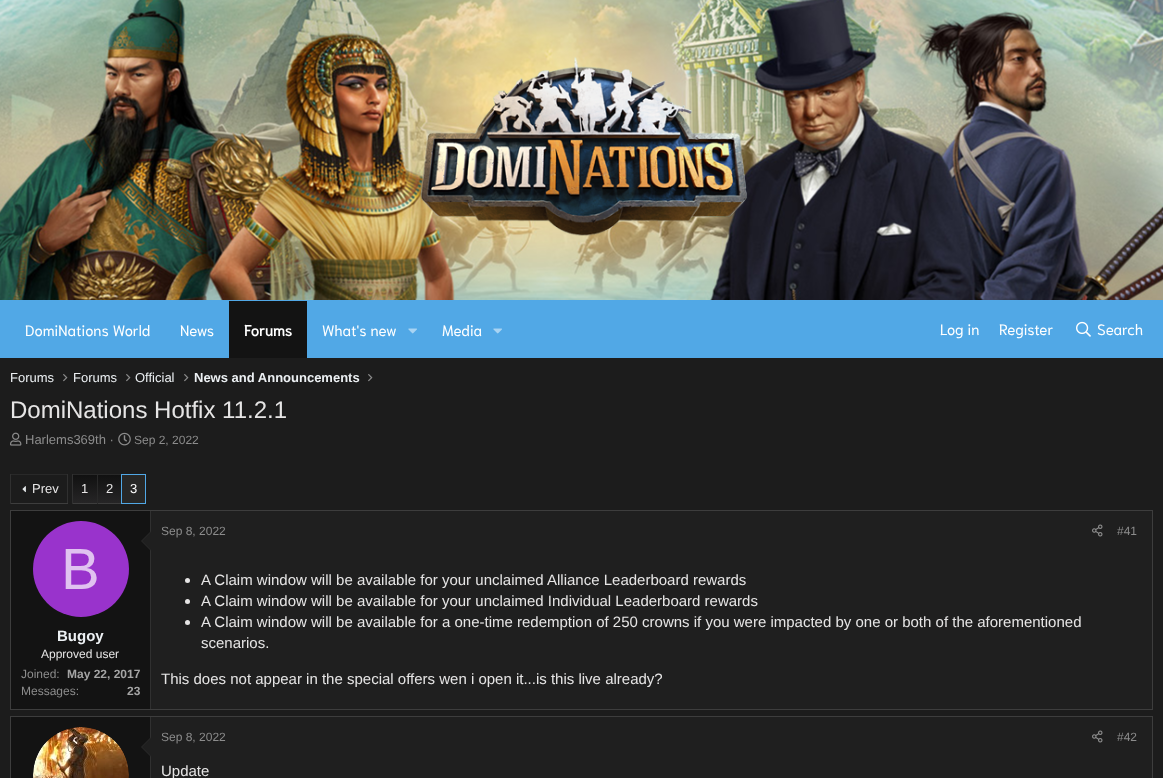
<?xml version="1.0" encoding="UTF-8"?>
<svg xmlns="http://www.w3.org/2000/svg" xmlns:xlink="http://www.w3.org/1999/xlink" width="1163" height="778">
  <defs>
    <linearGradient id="g1" gradientUnits="userSpaceOnUse" x1="85" y1="503" x2="85" y2="475"><stop offset="0" stop-color="#262526" /><stop offset="1" stop-color="#111111" /></linearGradient>
    <linearGradient id="g2" gradientUnits="userSpaceOnUse" x1="110" y1="503" x2="110" y2="475"><stop offset="0" stop-color="#262526" /><stop offset="1" stop-color="#111111" /></linearGradient>
  </defs>
  <rect width="100%" height="100%" fill="#1c1c1c" />
  <image x="0" y="0" width="1163" height="300" xlink:href="image1.png" />
  <image x="420" y="57" width="327" height="179" xlink:href="image2.png" />
  <rect y="300" width="1163" height="58" fill="#51a8e6" />
  <rect x="229" y="301" width="78" height="57" fill="#131313" />
  <image x="408" y="328" width="9" height="6" xlink:href="image3.png" />
  <image x="493" y="328" width="9" height="6" xlink:href="image3.png" />
  <image x="1076" y="321" width="15" height="16" xlink:href="image4.png" />
  <image x="63" y="374" width="5" height="8" xlink:href="image5.png" />
  <image x="126" y="374" width="5" height="8" xlink:href="image5.png" />
  <image x="184" y="374" width="5" height="8" xlink:href="image5.png" />
  <image x="368" y="374" width="5" height="8" xlink:href="image5.png" />
  <image x="10" y="432" width="12" height="14" xlink:href="image6.png" />
  <image x="118" y="432" width="13" height="14" xlink:href="image7.png" />
  <rect x="10" y="474" width="58" height="1" fill="#292929" />
  <rect x="67" y="474" width="1" height="30" fill="#303030" />
  <rect x="10" y="503" width="58" height="1" fill="#3d3d3d" />
  <rect x="10" y="474" width="1" height="30" fill="#303030" />
  <image x="22" y="486" width="4" height="7" xlink:href="image8.png" />
  <rect x="73" y="475" width="24" height="28" fill="url(#g1)" />
  <rect x="72" y="474" width="49" height="1" fill="#292929" />
  <rect x="72" y="503" width="49" height="1" fill="#3d3d3d" />
  <rect x="72" y="474" width="1" height="30" fill="#303030" />
  <rect x="98" y="475" width="23" height="28" fill="url(#g2)" />
  <rect x="97" y="474" width="1" height="30" fill="#292929" />
  <rect x="121.5" y="474.5" width="24" height="29" fill="#272726" stroke="#51a8e6" />
  <rect x="151" y="511" width="1001" height="198" fill="#1f1f1f" />
  <rect x="10.5" y="510.5" width="1142" height="199" fill="none" stroke="#3d3d3d" />
  <rect x="11" y="511" width="139" height="198" fill="#131313" />
  <rect x="150" y="511" width="1" height="198" fill="#303030" />
  <path d="M 151 531 v 20 l -10 -10 z" fill="#2b2b2b" />
  <path d="M 151 532 v 18 l -9 -9 z" fill="#1f1f1f" />
  <circle cx="81" cy="569" r="48" fill="#9933cc" />
  <image x="1092" y="524" width="11" height="13" xlink:href="image9.png" />
  <circle cx="187.5" cy="580.5" r="2.5" fill="#e6e5e5" />
  <circle cx="187.5" cy="601.5" r="2.5" fill="#e6e5e5" />
  <circle cx="187.5" cy="622.5" r="2.5" fill="#e6e5e5" />
  <rect x="151" y="717" width="1001" height="61" fill="#1f1f1f" />
  <rect x="10.5" y="716.5" width="1142" height="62" fill="none" stroke="#3d3d3d" />
  <rect x="11" y="717" width="139" height="61" fill="#131313" />
  <rect x="150" y="717" width="1" height="61" fill="#303030" />
  <circle cx="81" cy="775" r="48" fill="#0a0a0a" />
  <image x="33" y="727" width="96" height="51" xlink:href="image10.png" />
  <path d="M 151 737 v 20 l -10 -10 z" fill="#2b2b2b" />
  <path d="M 151 738 v 18 l -9 -9 z" fill="#1f1f1f" />
  <image x="1092" y="730" width="11" height="13" xlink:href="image9.png" />
  <text x="25" y="336" style="font-family: Niramit; font-size: 15px; fill: #ffffff">DomiNations World</text>
  <text x="180" y="336" style="font-family: Niramit; font-size: 15px; fill: #ffffff">News</text>
  <text x="244" y="336" style="font-family: Niramit; font-size: 15px; font-weight: bold; fill: #ffffff">Forums</text>
  <text x="322" y="336" style="font-family: Niramit; font-size: 15px; fill: #ffffff">What's new</text>
  <text x="442" y="336" style="font-family: Niramit; font-size: 15px; fill: #ffffff">Media</text>
  <text x="940" y="335" style="font-family: Niramit; font-size: 15px; fill: #ffffff">Log in</text>
  <text x="999" y="335" style="font-family: Niramit; font-size: 15px; fill: #ffffff">Register</text>
  <text x="1097" y="335" style="font-family: Niramit; font-size: 15px; fill: #ffffff">Search</text>
  <text x="10" y="382" style="font-family: Liberation Sans; font-size: 13px; fill: #ecf0f3">Forums</text>
  <text x="73" y="382" style="font-family: Liberation Sans; font-size: 13px; fill: #ecf0f3">Forums</text>
  <text x="135" y="382" style="font-family: Liberation Sans; font-size: 13px; fill: #ecf0f3">Official</text>
  <text x="194" y="382" style="font-family: Liberation Sans; font-size: 13px; font-weight: bold; fill: #ecf0f3">News and Announcements</text>
  <text x="10" y="418" style="font-family: Liberation Sans; font-size: 24px; fill: #e6e5e5">DomiNations Hotfix 11.2.1</text>
  <text x="25" y="444" style="font-family: Liberation Sans; font-size: 13px; fill: #8c8c8c">Harlems369th ·</text>
  <text x="134" y="444" style="font-family: Liberation Sans; font-size: 12px; fill: #8c8c8c">Sep 2, 2022</text>
  <text x="32" y="493" style="font-family: Liberation Sans; font-size: 13px; fill: #e6e5e5">Prev</text>
  <text x="81" y="493" style="font-family: Liberation Sans; font-size: 13px; fill: #e6e5e5">1</text>
  <text x="106" y="493" style="font-family: Liberation Sans; font-size: 13px; fill: #e6e5e5">2</text>
  <text x="130" y="493" style="font-family: Liberation Sans; font-size: 13px; fill: #ffffff">3</text>
  <text x="61" y="589" style="font-family: Liberation Sans; font-size: 58px; fill: #e0c2f0">B</text>
  <text x="57" y="641" style="font-family: Liberation Sans; font-size: 15px; font-weight: bold; fill: #ecf0f3">Bugoy</text>
  <text x="41" y="658" style="font-family: Liberation Sans; font-size: 12px; fill: #e6e5e5">Approved user</text>
  <text x="21" y="678" style="font-family: Liberation Sans; font-size: 12px; fill: #8c8c8c">Joined:</text>
  <text x="67" y="678" style="font-family: Liberation Sans; font-size: 12px; font-weight: bold; fill: #a5a5a5">May 22, 2017</text>
  <text x="21" y="695" style="font-family: Liberation Sans; font-size: 12px; fill: #8c8c8c">Messages:</text>
  <text x="127" y="695" style="font-family: Liberation Sans; font-size: 12px; font-weight: bold; fill: #a5a5a5">23</text>
  <text x="161" y="535" style="font-family: Liberation Sans; font-size: 12px; fill: #8c8c8c">Sep 8, 2022</text>
  <text x="1117" y="535" style="font-family: Liberation Sans; font-size: 12px; fill: #8c8c8c">#41</text>
  <text x="201" y="585" style="font-family: Liberation Sans; font-size: 15px; fill: #e6e5e5">A Claim window will be available for your unclaimed Alliance Leaderboard rewards</text>
  <text x="201" y="606" style="font-family: Liberation Sans; font-size: 15px; fill: #e6e5e5">A Claim window will be available for your unclaimed Individual Leaderboard rewards</text>
  <text x="201" y="627" style="font-family: Liberation Sans; font-size: 15px; fill: #e6e5e5">A Claim window will be available for a one-time redemption of 250 crowns if you were impacted by one or both of the aforementioned</text>
  <text x="201" y="648" style="font-family: Liberation Sans; font-size: 15px; fill: #e6e5e5">scenarios.</text>
  <text x="161" y="684" style="font-family: Liberation Sans; font-size: 15px; fill: #e6e5e5">This does not appear in the special offers wen i open it...is this live already?</text>
  <text x="161" y="741" style="font-family: Liberation Sans; font-size: 12px; fill: #8c8c8c">Sep 8, 2022</text>
  <text x="1117" y="741" style="font-family: Liberation Sans; font-size: 12px; fill: #8c8c8c">#42</text>
  <text x="161" y="776" style="font-family: Liberation Sans; font-size: 15px; fill: #e6e5e5">Update</text>
</svg>
